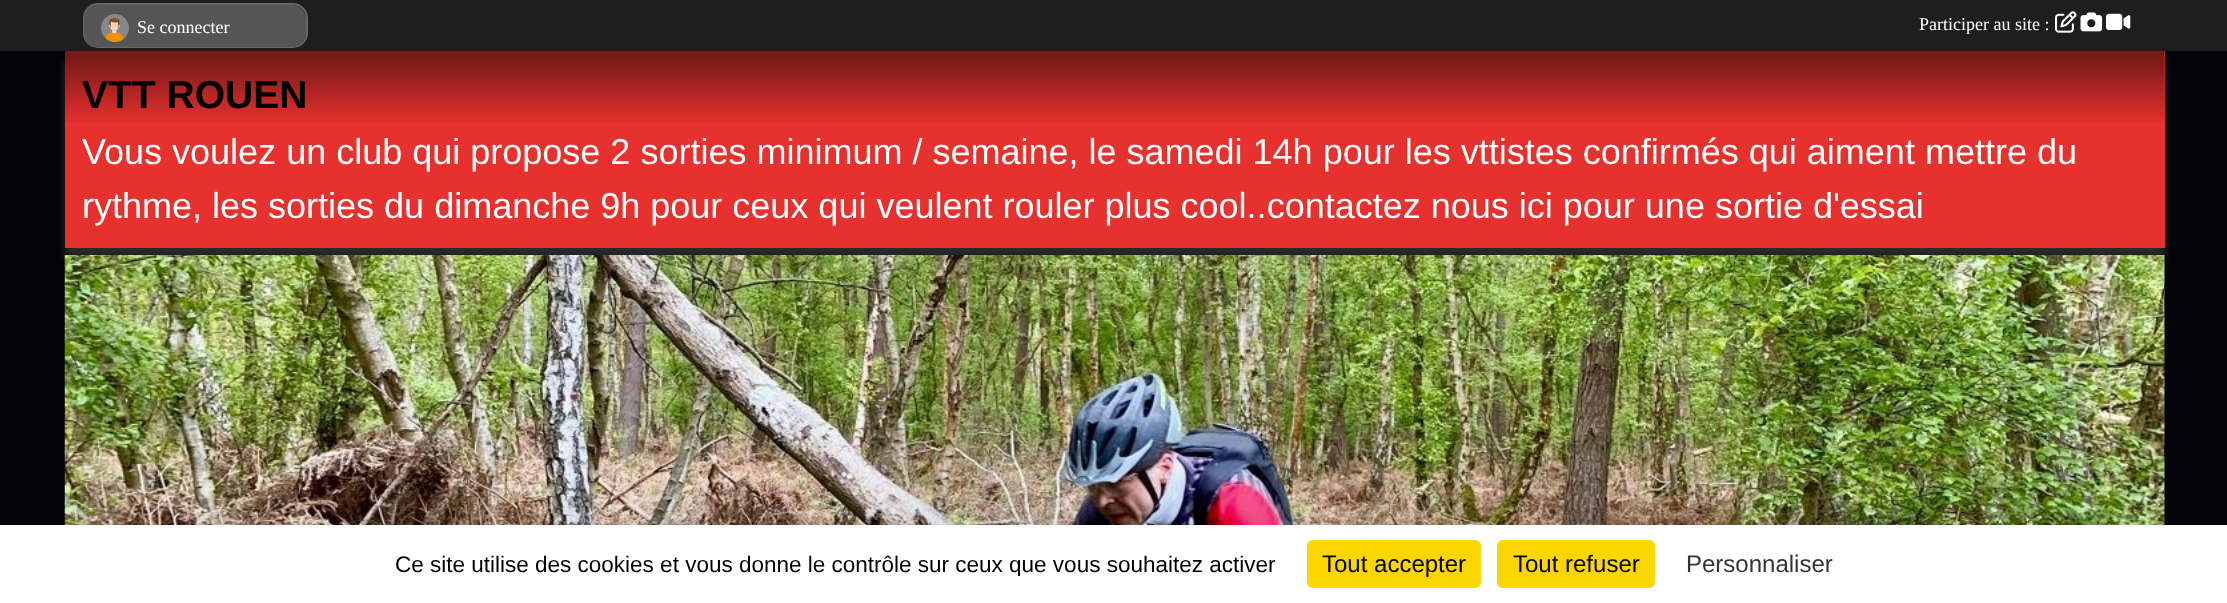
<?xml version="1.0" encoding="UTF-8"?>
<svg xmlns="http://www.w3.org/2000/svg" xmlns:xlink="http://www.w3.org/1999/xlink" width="2227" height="603">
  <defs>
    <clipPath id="clip1"><rect x="380" y="551" width="910" height="25" /></clipPath>
  </defs>
  <rect width="100%" height="100%" fill="#040408" />
  <rect x="65" y="62" width="2100" height="196" fill="#505050" fill-opacity="0.5" filter="blur(4px)" />
  <rect width="2227" height="51" fill="#1e1e1e" />
  <rect x="84" y="4" width="223" height="43" rx="14" fill="#333333" stroke="#666666" stroke-width="2" />
  <rect x="84" y="5" width="222" height="42" rx="14" fill="#555555" />
  <image x="101" y="14" width="28" height="28" xlink:href="image1.png" />
  <image x="2055" y="11" width="22" height="22" xlink:href="image2.png" />
  <image x="2080" y="12" width="23" height="20" xlink:href="image3.png" />
  <image x="2106" y="13" width="25" height="17" xlink:href="image4.png" />
  <rect x="65" y="51" width="2100" height="197" fill="#e6312e" />
  <image x="65" y="51" width="2100" height="71" xlink:href="image5.png" />
  <image x="64" y="255" width="2101" height="270" xlink:href="image6.png" />
  <rect y="555" width="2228" height="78" fill="#000000" fill-opacity="0.25" filter="blur(45px)" />
  <rect y="525" width="2227" height="78" fill="#ffffff" />
  <rect x="1307" y="540" width="174" height="48" rx="6" fill="#fbd600" />
  <rect x="1497" y="540" width="158" height="48" rx="6" fill="#fbd600" />
  <text x="137" y="33" style="font-family: Liberation Serif; font-size: 18px; fill: #ffffff">Se connecter</text>
  <text x="1919" y="30" style="font-family: Liberation Serif; font-size: 18px; fill: #ffffff">Participer au site :</text>
  <text x="82" y="108" style="font-family: Liberation Sans; font-size: 39px; font-weight: bold; fill: #000000">VTT ROUEN</text>
  <text x="82" y="164" style="font-family: Liberation Sans; font-size: 36px; fill: #ffffff">Vous voulez un club qui propose 2 sorties minimum / semaine, le samedi 14h pour les vttistes confirmés qui aiment mettre du</text>
  <text x="82" y="218" style="font-family: Liberation Sans; font-size: 36px; fill: #ffffff">rythme, les sorties du dimanche 9h pour ceux qui veulent rouler plus cool..contactez nous ici pour une sortie d'essai</text>
  <g clip-path="url(#clip1)">
    <text x="395" y="572" style="font-family: Liberation Sans; font-size: 22.5px; fill: #000000">Ce site utilise des cookies et vous donne le contrôle sur ceux que vous souhaitez activer</text>
  </g>
  <text x="1322" y="572" style="font-family: Liberation Sans; font-size: 24px; fill: #000000">Tout accepter</text>
  <text x="1513" y="572" style="font-family: Liberation Sans; font-size: 24px; fill: #000000">Tout refuser</text>
  <text x="1686" y="572" style="font-family: Liberation Sans; font-size: 24px; fill: #333333">Personnaliser</text>
</svg>
